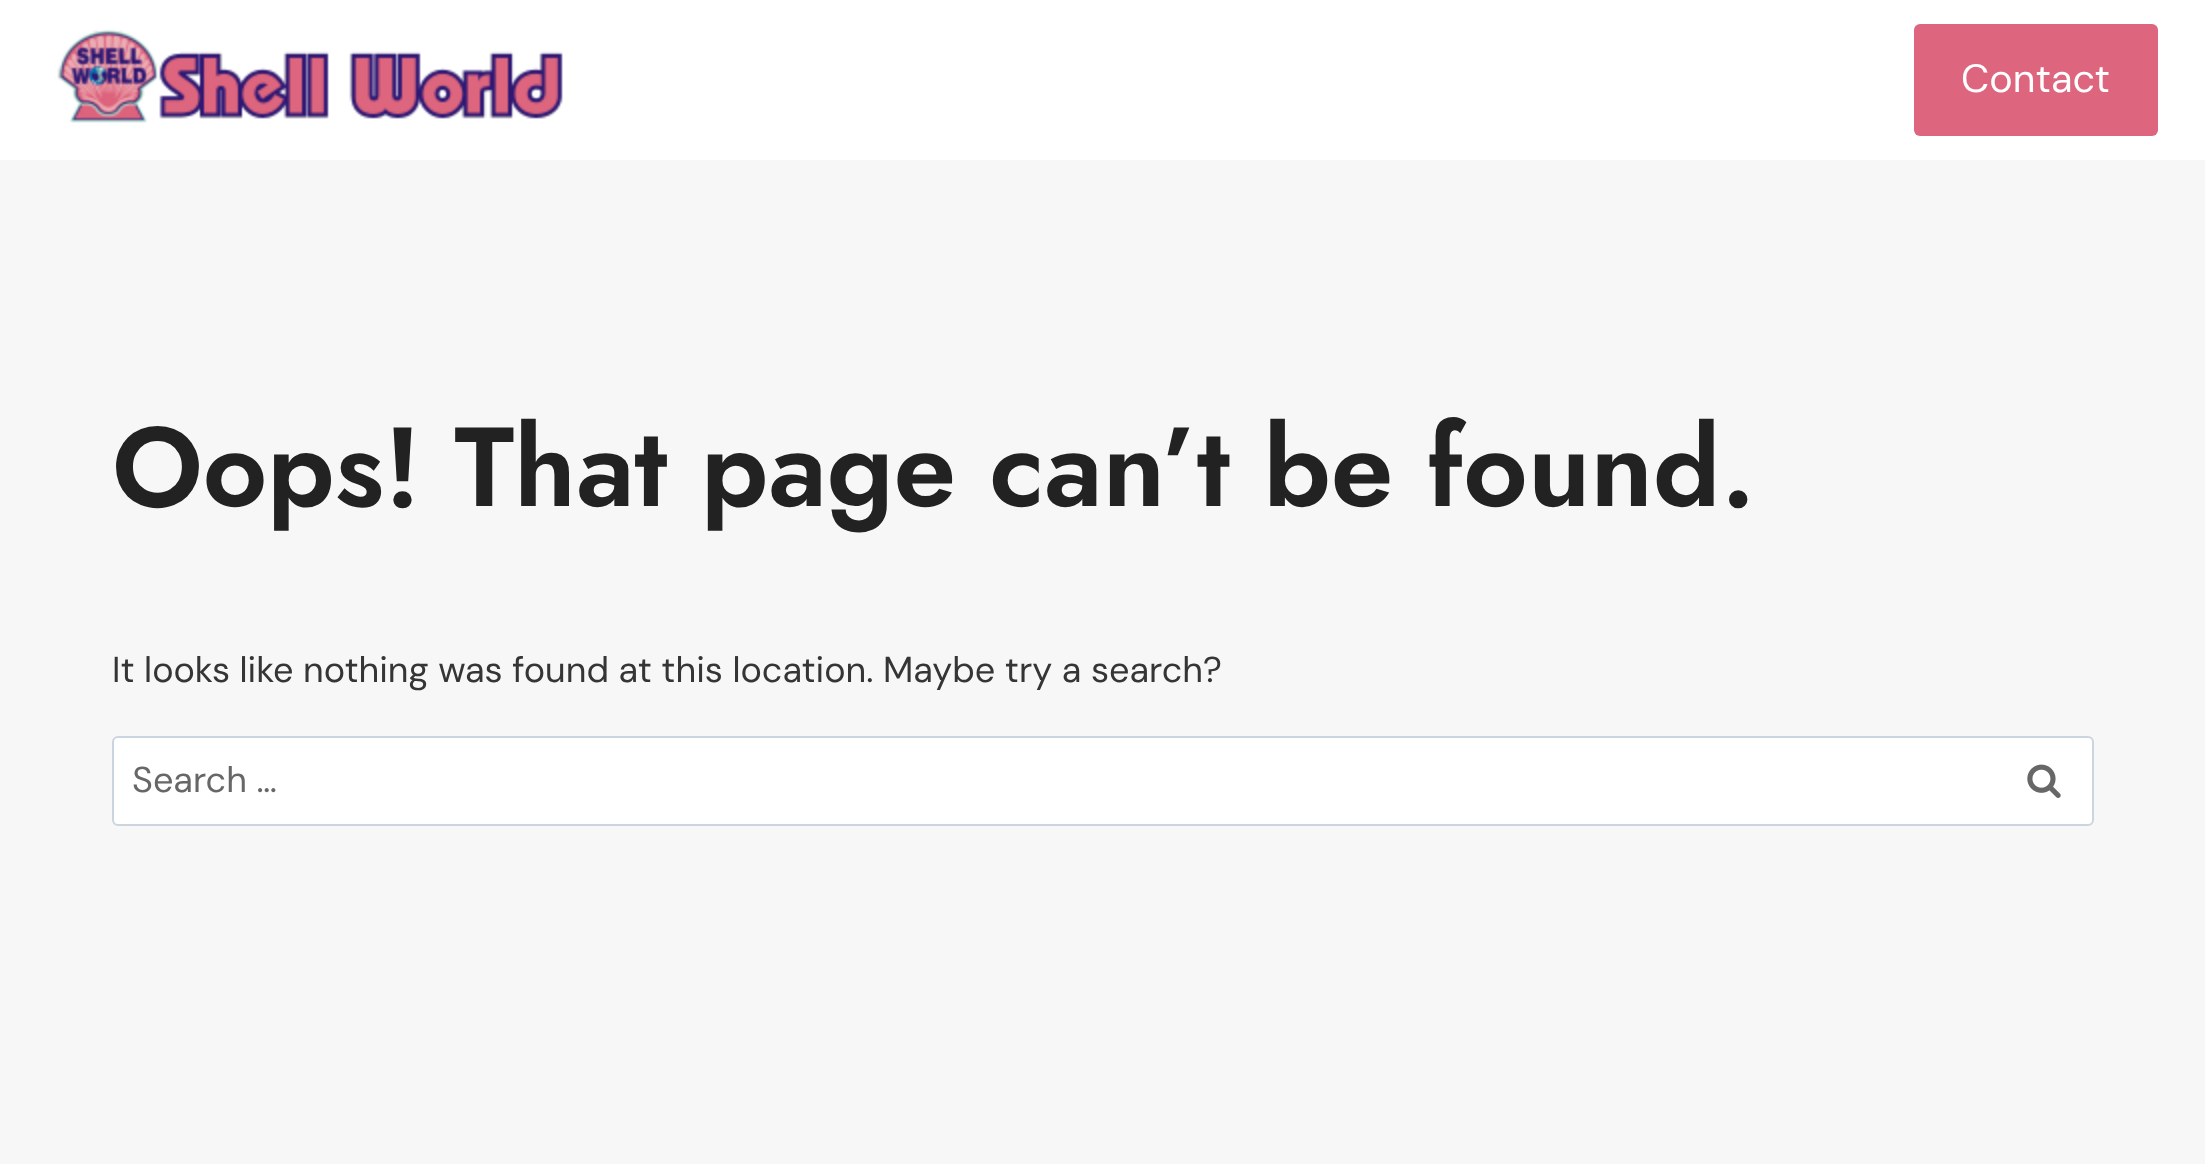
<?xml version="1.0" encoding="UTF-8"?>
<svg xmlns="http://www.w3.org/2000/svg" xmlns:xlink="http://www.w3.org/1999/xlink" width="2205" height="1164">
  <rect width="100%" height="100%" fill="#f7f7f7" />
  <rect width="2205" height="160" fill="#ffffff" />
  <image x="57" y="29" width="506" height="94" xlink:href="image1.png" />
  <rect x="1914" y="24" width="244" height="112" rx="6" fill="#dd657e" />
  <rect x="113" y="737" width="1980" height="88" rx="5" fill="#ffffff" stroke="#cbd5e0" stroke-width="2" />
  <image x="2027" y="764" width="34" height="34" xlink:href="image2.png" />
  <text x="1961" y="92" style="font-family: DM Sans; font-size: 39.5px; fill: #ffffff">Contact</text>
  <text x="112" y="506" style="font-family: Jost; font-size: 112px; font-weight: 600; fill: #222222">Oops! That page can’t be found.</text>
  <text x="112" y="682" style="font-family: DM Sans; font-size: 36px; fill: #353535">It looks like nothing was found at this location. Maybe try a search?</text>
  <text x="132" y="792" style="font-family: DM Sans; font-size: 36px; fill: #676767">Search …</text>
</svg>
